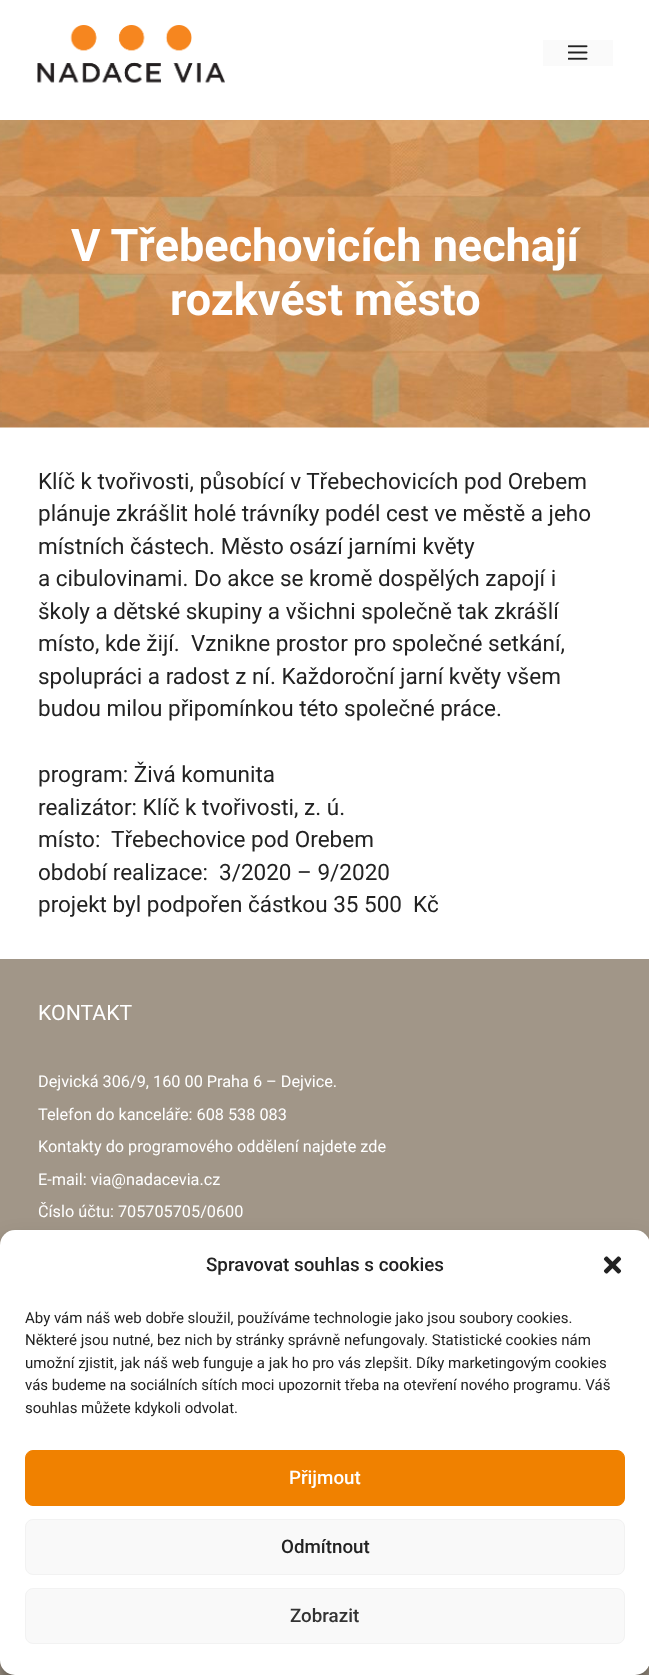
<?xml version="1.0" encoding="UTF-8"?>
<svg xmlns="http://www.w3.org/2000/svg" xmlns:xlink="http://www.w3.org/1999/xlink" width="649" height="1675">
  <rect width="100%" height="100%" fill="#ffffff" />
  <image x="37" y="25" width="188" height="58" xlink:href="image1.png" />
  <rect x="543" y="40" width="70" height="26" fill="#fafafa" />
  <image x="568" y="45" width="20" height="15" xlink:href="image2.png" />
  <image x="0" y="120" width="649" height="308" xlink:href="image3.png" />
  <rect y="959" width="649" height="716" fill="#a19688" />
  <rect y="1238" width="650" height="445" rx="15" fill="#000000" fill-opacity="0.23" filter="blur(4px)" />
  <rect y="1243" width="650" height="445" rx="15" fill="#000000" fill-opacity="0.19" filter="blur(12.5px)" />
  <rect y="1230" width="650" height="445" rx="15" fill="#ffffff" />
  <image x="603" y="1256" width="19" height="18" xlink:href="image4.png" />
  <rect x="25.5" y="1450.5" width="599" height="55" rx="7.5" fill="#f08100" stroke="#f08100" />
  <rect x="25.5" y="1519.5" width="599" height="55" rx="7.5" fill="#f9f9f9" stroke="#f2f2f2" />
  <rect x="25.5" y="1588.5" width="599" height="55" rx="7.5" fill="#f9f9f9" stroke="#f2f2f2" />
  <text x="71" y="261" style="font-family: Roboto; font-size: 45px; font-weight: bold; fill: #ffffff">V Třebechovicích nechají</text>
  <text x="170" y="315" style="font-family: Roboto; font-size: 45px; font-weight: bold; fill: #ffffff">rozkvést město</text>
  <text x="38" y="489" style="font-family: Roboto; font-size: 22.5px; fill: #222222">Klíč k tvořivosti, působící v Třebechovicích pod Orebem</text>
  <text x="38" y="521" style="font-family: Roboto; font-size: 22.5px; fill: #222222">plánuje zkrášlit holé trávníky podél cest ve městě a jeho</text>
  <text x="38" y="554" style="font-family: Roboto; font-size: 22.5px; fill: #222222">místních částech. Město osází jarními květy</text>
  <text x="38" y="586" style="font-family: Roboto; font-size: 22.5px; fill: #222222">a cibulovinami. Do akce se kromě dospělých zapojí i</text>
  <text x="38" y="619" style="font-family: Roboto; font-size: 22.5px; fill: #222222">školy a dětské skupiny a všichni společně tak zkrášlí</text>
  <text x="38" y="651" style="font-family: Roboto; font-size: 22.5px; fill: #222222">místo, kde žijí.</text>
  <text x="191" y="651" style="font-family: Roboto; font-size: 22.5px; fill: #222222">Vznikne prostor pro společné setkání,</text>
  <text x="38" y="684" style="font-family: Roboto; font-size: 22.5px; fill: #222222">spolupráci a radost z ní. Každoroční jarní květy všem</text>
  <text x="38" y="716" style="font-family: Roboto; font-size: 22.5px; fill: #222222">budou milou připomínkou této společné práce.</text>
  <text x="38" y="782" style="font-family: Roboto; font-size: 22.5px; fill: #222222">program: Živá komunita</text>
  <text x="38" y="815" style="font-family: Roboto; font-size: 22.5px; fill: #222222">realizátor: Klíč k tvořivosti, z. ú.</text>
  <text x="38" y="847" style="font-family: Roboto; font-size: 22.5px; fill: #222222">místo:</text>
  <text x="111" y="847" style="font-family: Roboto; font-size: 22.5px; fill: #222222">Třebechovice pod Orebem</text>
  <text x="38" y="880" style="font-family: Roboto; font-size: 22.5px; fill: #222222">období realizace:</text>
  <text x="219" y="880" style="font-family: Roboto; font-size: 22.5px; fill: #222222">3/2020 – 9/2020</text>
  <text x="38" y="912" style="font-family: Roboto; font-size: 22.5px; fill: #222222">projekt byl podpořen částkou 35 500</text>
  <text x="413" y="912" style="font-family: Roboto; font-size: 22.5px; fill: #222222">Kč</text>
  <text x="38" y="1020" style="font-family: Roboto; font-size: 21.25px; fill: #ffffff">KONTAKT</text>
  <text x="38" y="1087" style="font-family: Roboto; font-size: 16.25px; fill: #ffffff">Dejvická 306/9, 160 00 Praha 6 – Dejvice.</text>
  <text x="38" y="1120" style="font-family: Roboto; font-size: 16.25px; fill: #ffffff">Telefon do kanceláře: 608 538 083</text>
  <text x="38" y="1152" style="font-family: Roboto; font-size: 16.25px; fill: #ffffff">Kontakty do programového oddělení najdete zde</text>
  <text x="38" y="1185" style="font-family: Roboto; font-size: 16.25px; fill: #ffffff">E-mail: via@nadacevia.cz</text>
  <text x="38" y="1217" style="font-family: Roboto; font-size: 16.25px; fill: #ffffff">Číslo účtu: 705705705/0600</text>
  <text x="206" y="1271" style="font-family: Roboto; font-size: 18.75px; font-weight: 500; fill: #222222">Spravovat souhlas s cookies</text>
  <text x="25" y="1323" style="font-family: Roboto; font-size: 15px; fill: #222222">Aby vám náš web dobře sloužil, používáme technologie jako jsou soubory cookies.</text>
  <text x="25" y="1345" style="font-family: Roboto; font-size: 15px; fill: #222222">Některé jsou nutné, bez nich by stránky správně nefungovaly. Statistické cookies nám</text>
  <text x="25" y="1368" style="font-family: Roboto; font-size: 15px; fill: #222222">umožní zjistit, jak náš web funguje a jak ho pro vás zlepšit. Díky marketingovým cookies</text>
  <text x="25" y="1390" style="font-family: Roboto; font-size: 15px; fill: #222222">vás budeme na sociálních sítích moci upozornit třeba na otevření nového programu. Váš</text>
  <text x="25" y="1413" style="font-family: Roboto; font-size: 15px; fill: #222222">souhlas můžete kdykoli odvolat.</text>
  <text x="289" y="1484" style="font-family: Roboto; font-size: 18.75px; font-weight: 500; fill: #ffffff">Přijmout</text>
  <text x="281" y="1553" style="font-family: Roboto; font-size: 18.75px; font-weight: 500; fill: #222222">Odmítnout</text>
  <text x="290" y="1622" style="font-family: Roboto; font-size: 18.75px; font-weight: 500; fill: #333333">Zobrazit</text>
</svg>
